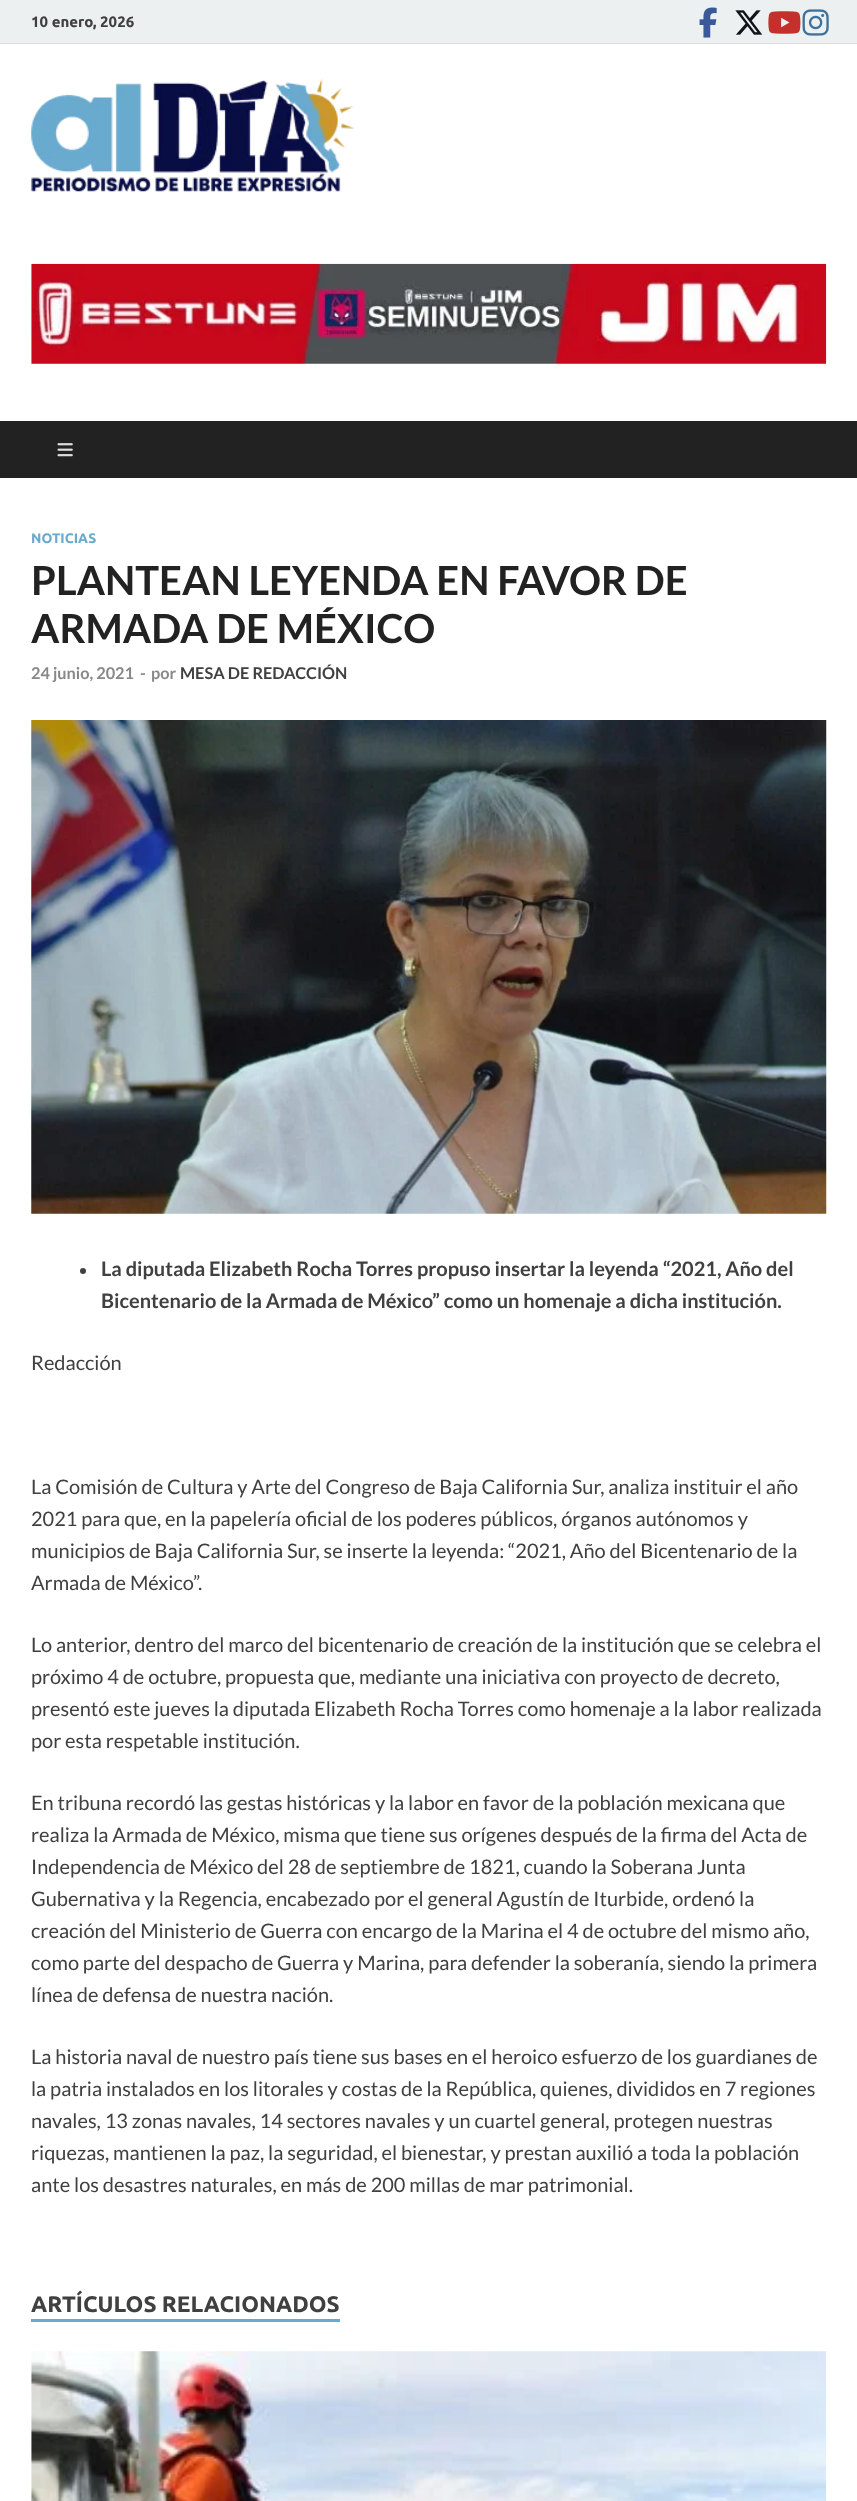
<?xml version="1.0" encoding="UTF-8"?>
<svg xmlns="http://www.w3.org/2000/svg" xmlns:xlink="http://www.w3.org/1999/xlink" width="857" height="2501">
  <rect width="100%" height="100%" fill="#ffffff" />
  <rect width="857" height="43" fill="#ecf0f1" />
  <rect y="43" width="857" height="1" fill="#dddddd" />
  <image x="699" y="7" width="18" height="31" xlink:href="image1.png" />
  <image x="735" y="10" width="28" height="25" xlink:href="image2.png" />
  <image x="768" y="11" width="33" height="23" xlink:href="image3.png" />
  <image x="802" y="9" width="27" height="27" xlink:href="image4.png" />
  <image x="31" y="78" width="324" height="114" xlink:href="image5.png" />
  <image x="31" y="263" width="796" height="101" xlink:href="image6.png" />
  <rect y="421" width="857" height="57" fill="#222222" />
  <image x="57" y="443" width="16" height="14" xlink:href="image7.png" />
  <image x="31" y="720" width="796" height="494" xlink:href="image8.png" />
  <circle cx="83" cy="1271" r="3" fill="#404040" />
  <rect x="31" y="2319" width="309" height="3" fill="#6aaacf" />
  <image x="31" y="2351" width="795" height="150" xlink:href="image9.png" />
  <text x="31" y="27" style="font-family: Ubuntu; font-size: 15px; font-weight: bold; fill: #404040">10 enero, 2026</text>
  <text x="31" y="543" style="font-family: Ubuntu; font-size: 13.75px; font-weight: bold; fill: #6aaacf">NOTICIAS</text>
  <text x="31" y="595" style="font-family: Lato; font-size: 40px; font-weight: bold; fill: #222222">PLANTEAN LEYENDA EN FAVOR DE</text>
  <text x="31" y="643" style="font-family: Lato; font-size: 40px; font-weight: bold; fill: #222222">ARMADA DE MÉXICO</text>
  <text x="31" y="679" style="font-family: Lato; font-size: 16.25px; font-weight: bold; fill: #888888">24 junio, 2021</text>
  <text x="140" y="679" style="font-family: Lato; font-size: 16.25px; font-weight: bold; fill: #888888">-</text>
  <text x="151" y="679" style="font-family: Lato; font-size: 16.25px; font-weight: bold; fill: #888888">por</text>
  <text x="180" y="679" style="font-family: Lato; font-size: 16.25px; font-weight: bold; fill: #404040">MESA DE REDACCIÓN</text>
  <text x="101" y="1276" style="font-family: Lato; font-size: 20px; font-weight: bold; fill: #404040">La diputada Elizabeth Rocha Torres propuso insertar la leyenda “2021, Año del</text>
  <text x="101" y="1308" style="font-family: Lato; font-size: 20px; font-weight: bold; fill: #404040">Bicentenario de la Armada de México” como un homenaje a dicha institución.</text>
  <text x="31" y="1370" style="font-family: Lato; font-size: 20px; fill: #404040">Redacción</text>
  <text x="31" y="1494" style="font-family: Lato; font-size: 20px; fill: #404040">La Comisión de Cultura y Arte del Congreso de Baja California Sur, analiza instituir el año</text>
  <text x="31" y="1526" style="font-family: Lato; font-size: 20px; fill: #404040">2021 para que, en la papelería oficial de los poderes públicos, órganos autónomos y</text>
  <text x="31" y="1558" style="font-family: Lato; font-size: 20px; fill: #404040">municipios de Baja California Sur, se inserte la leyenda: “2021, Año del Bicentenario de la</text>
  <text x="31" y="1590" style="font-family: Lato; font-size: 20px; fill: #404040">Armada de México”.</text>
  <text x="31" y="1652" style="font-family: Lato; font-size: 20px; fill: #404040">Lo anterior, dentro del marco del bicentenario de creación de la institución que se celebra el</text>
  <text x="31" y="1684" style="font-family: Lato; font-size: 20px; fill: #404040">próximo 4 de octubre, propuesta que, mediante una iniciativa con proyecto de decreto,</text>
  <text x="31" y="1716" style="font-family: Lato; font-size: 20px; fill: #404040">presentó este jueves la diputada Elizabeth Rocha Torres como homenaje a la labor realizada</text>
  <text x="31" y="1748" style="font-family: Lato; font-size: 20px; fill: #404040">por esta respetable institución.</text>
  <text x="31" y="1810" style="font-family: Lato; font-size: 20px; fill: #404040">En tribuna recordó las gestas históricas y la labor en favor de la población mexicana que</text>
  <text x="31" y="1842" style="font-family: Lato; font-size: 20px; fill: #404040">realiza la Armada de México, misma que tiene sus orígenes después de la firma del Acta de</text>
  <text x="31" y="1874" style="font-family: Lato; font-size: 20px; fill: #404040">Independencia de México del 28 de septiembre de 1821, cuando la Soberana Junta</text>
  <text x="31" y="1906" style="font-family: Lato; font-size: 20px; fill: #404040">Gubernativa y la Regencia, encabezado por el general Agustín de Iturbide, ordenó la</text>
  <text x="31" y="1938" style="font-family: Lato; font-size: 20px; fill: #404040">creación del Ministerio de Guerra con encargo de la Marina el 4 de octubre del mismo año,</text>
  <text x="31" y="1970" style="font-family: Lato; font-size: 20px; fill: #404040">como parte del despacho de Guerra y Marina, para defender la soberanía, siendo la primera</text>
  <text x="31" y="2002" style="font-family: Lato; font-size: 20px; fill: #404040">línea de defensa de nuestra nación.</text>
  <text x="31" y="2064" style="font-family: Lato; font-size: 20px; fill: #404040">La historia naval de nuestro país tiene sus bases en el heroico esfuerzo de los guardianes de</text>
  <text x="31" y="2096" style="font-family: Lato; font-size: 20px; fill: #404040">la patria instalados en los litorales y costas de la República, quienes, divididos en 7 regiones</text>
  <text x="31" y="2128" style="font-family: Lato; font-size: 20px; fill: #404040">navales, 13 zonas navales, 14 sectores navales y un cuartel general, protegen nuestras</text>
  <text x="31" y="2160" style="font-family: Lato; font-size: 20px; fill: #404040">riquezas, mantienen la paz, la seguridad, el bienestar, y prestan auxilió a toda la población</text>
  <text x="31" y="2192" style="font-family: Lato; font-size: 20px; fill: #404040">ante los desastres naturales, en más de 200 millas de mar patrimonial.</text>
  <text x="31" y="2312" style="font-family: Ubuntu; font-size: 22.5px; font-weight: bold; fill: #404040">ARTÍCULOS RELACIONADOS</text>
</svg>
